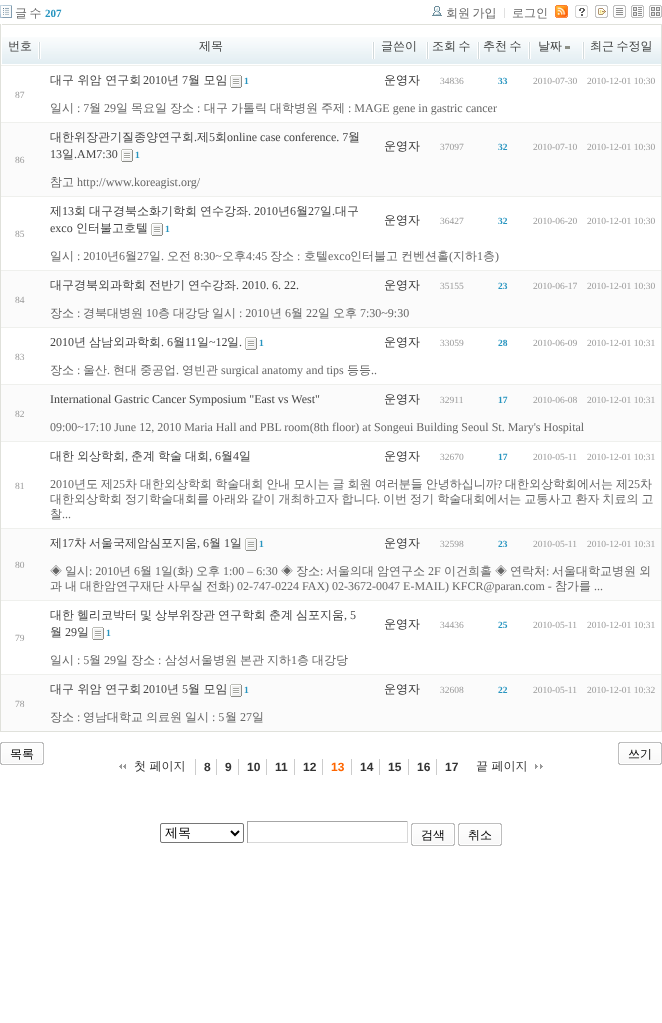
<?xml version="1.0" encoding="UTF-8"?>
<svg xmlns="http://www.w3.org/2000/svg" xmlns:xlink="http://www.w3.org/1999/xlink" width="662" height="1023">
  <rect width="100%" height="100%" fill="#ffffff" />
  <image x="0" y="5" width="12" height="13" xlink:href="image1.png" />
  <image x="432" y="6" width="10" height="10" xlink:href="image2.png" />
  <rect x="504" y="8" width="1" height="10" fill="#e0e0e0" />
  <image x="555" y="5" width="13" height="13" xlink:href="image3.png" />
  <image x="575" y="5" width="13" height="13" xlink:href="image4.png" />
  <image x="595" y="5" width="13" height="13" xlink:href="image5.png" />
  <image x="613" y="5" width="13" height="13" xlink:href="image6.png" />
  <image x="631" y="5" width="13" height="13" xlink:href="image7.png" />
  <image x="649" y="5" width="13" height="13" xlink:href="image8.png" />
  <rect x="661" y="24" width="1" height="708" fill="#e0e1db" />
  <rect y="731" width="662" height="1" fill="#e0e1db" />
  <rect y="24" width="1" height="708" fill="#e0e1db" />
  <image x="2" y="37" width="36" height="27" xlink:href="image9.png" />
  <rect x="1" y="24" width="660" height="1" fill="#e0e1db" />
  <rect x="1" y="24" width="1" height="1" fill="#ffffff" />
  <image x="38" y="37" width="334" height="27" xlink:href="image10.png" />
  <image x="372" y="37" width="54" height="27" xlink:href="image11.png" />
  <image x="426" y="37" width="51" height="27" xlink:href="image12.png" />
  <image x="477" y="37" width="51" height="27" xlink:href="image12.png" />
  <image x="528" y="37" width="54" height="27" xlink:href="image11.png" />
  <rect x="565" y="46" width="5" height="3" fill="#8c8f86" />
  <image x="582" y="37" width="79" height="27" xlink:href="image13.png" />
  <image x="230" y="75" width="12" height="13" xlink:href="image14.png" />
  <rect x="1" y="65" width="660" height="1" fill="#eff0ed" />
  <rect x="1" y="123" width="660" height="73" fill="#fbfbfb" />
  <image x="121" y="149" width="12" height="13" xlink:href="image15.png" />
  <rect x="1" y="122" width="660" height="1" fill="#eff0ed" />
  <image x="151" y="223" width="12" height="13" xlink:href="image14.png" />
  <rect x="1" y="196" width="660" height="1" fill="#eff0ed" />
  <rect x="1" y="271" width="660" height="56" fill="#fbfbfb" />
  <rect x="1" y="270" width="660" height="1" fill="#eff0ed" />
  <image x="245" y="337" width="12" height="13" xlink:href="image14.png" />
  <rect x="1" y="327" width="660" height="1" fill="#eff0ed" />
  <rect x="1" y="385" width="660" height="56" fill="#fbfbfb" />
  <rect x="1" y="384" width="660" height="1" fill="#eff0ed" />
  <rect x="1" y="441" width="660" height="1" fill="#eff0ed" />
  <rect x="1" y="529" width="660" height="71" fill="#fbfbfb" />
  <image x="245" y="538" width="12" height="13" xlink:href="image15.png" />
  <rect x="1" y="528" width="660" height="1" fill="#eff0ed" />
  <image x="92" y="627" width="12" height="13" xlink:href="image14.png" />
  <rect x="1" y="600" width="660" height="1" fill="#eff0ed" />
  <rect x="1" y="675" width="660" height="56" fill="#fbfbfb" />
  <image x="230" y="684" width="12" height="13" xlink:href="image15.png" />
  <rect x="1" y="674" width="660" height="1" fill="#eff0ed" />
  <image x="0" y="742" width="42" height="23" xlink:href="image16.png" />
  <image x="42" y="742" width="2" height="23" xlink:href="image17.png" />
  <image x="618" y="742" width="42" height="23" xlink:href="image16.png" />
  <image x="660" y="742" width="2" height="23" xlink:href="image17.png" />
  <image x="119" y="764" width="7" height="5" xlink:href="image18.png" />
  <rect x="195" y="759" width="1" height="16" fill="#cccccc" />
  <rect x="216" y="759" width="1" height="16" fill="#cccccc" />
  <rect x="238" y="759" width="1" height="16" fill="#cccccc" />
  <rect x="266" y="759" width="1" height="16" fill="#cccccc" />
  <rect x="294" y="759" width="1" height="16" fill="#cccccc" />
  <rect x="322" y="759" width="1" height="16" fill="#cccccc" />
  <rect x="351" y="759" width="1" height="16" fill="#cccccc" />
  <rect x="379" y="759" width="1" height="16" fill="#cccccc" />
  <rect x="408" y="759" width="1" height="16" fill="#cccccc" />
  <rect x="436" y="759" width="1" height="16" fill="#cccccc" />
  <image x="535" y="764" width="8" height="5" xlink:href="image19.png" />
  <rect x="160.5" y="823.5" width="83" height="19" rx="1.5" fill="none" stroke="#767676" />
  <path d="M 231 831 l 4 4 l 4 -4" fill="none" stroke="#000000" stroke-width="2" />
  <rect x="247" y="821" width="161" height="1" fill="#a6a6a6" />
  <rect x="407" y="821" width="1" height="22" fill="#d8d8d8" />
  <rect x="247" y="842" width="161" height="1" fill="#d8d8d8" />
  <rect x="247" y="821" width="1" height="22" fill="#a6a6a6" />
  <image x="411" y="823" width="42" height="23" xlink:href="image16.png" />
  <image x="453" y="823" width="2" height="23" xlink:href="image17.png" />
  <image x="458" y="823" width="42" height="23" xlink:href="image16.png" />
  <image x="500" y="823" width="2" height="23" xlink:href="image17.png" />
  <text x="15" y="17" word-spacing="-1" style="font-family: WenQuanYi Zen Hei; font-size: 12px; font-weight: 500; fill: #666666">글 수</text>
  <text x="45" y="17" style="font-family: Liberation Serif; font-size: 11px; font-weight: bold; fill: #2895c0">207</text>
  <text x="446" y="17" word-spacing="-1" style="font-family: WenQuanYi Zen Hei; font-size: 12px; font-weight: 500; fill: #666666">회원 가입</text>
  <text x="512" y="17" style="font-family: WenQuanYi Zen Hei; font-size: 12px; font-weight: 500; fill: #666666">로그인</text>
  <text x="8" y="50" style="font-family: WenQuanYi Zen Hei; font-size: 12px; font-weight: 500; fill: #3e3f3e">번호</text>
  <text x="199" y="50" style="font-family: WenQuanYi Zen Hei; font-size: 12px; font-weight: 500; fill: #3e3f3e">제목</text>
  <text x="381" y="50" style="font-family: WenQuanYi Zen Hei; font-size: 12px; font-weight: 500; fill: #3e3f3e">글쓴이</text>
  <text x="432" y="50" word-spacing="-1" style="font-family: WenQuanYi Zen Hei; font-size: 12px; font-weight: 500; fill: #3e3f3e">조회 수</text>
  <text x="483" y="50" word-spacing="-1" style="font-family: WenQuanYi Zen Hei; font-size: 12px; font-weight: 500; fill: #3e3f3e">추천 수</text>
  <text x="538" y="50" style="font-family: WenQuanYi Zen Hei; font-size: 12px; font-weight: 500; fill: #3e3f3e">날짜</text>
  <text x="590" y="50" word-spacing="-1" style="font-family: WenQuanYi Zen Hei; font-size: 12px; font-weight: 500; fill: #3e3f3e">최근 수정일</text>
  <text x="50" y="84" style="font-family: WenQuanYi Zen Hei; font-size: 12px; font-weight: 500; fill: #444444">대구 위암 연구회</text>
  <text x="143" y="84" style="font-family: Liberation Serif; font-size: 12px; fill: #444444">2010</text>
  <text x="167" y="84" style="font-family: WenQuanYi Zen Hei; font-size: 12px; font-weight: 500; fill: #444444">년</text>
  <text x="182" y="84" style="font-family: Liberation Serif; font-size: 12px; fill: #444444">7</text>
  <text x="188" y="84" style="font-family: WenQuanYi Zen Hei; font-size: 12px; font-weight: 500; fill: #444444">월 모임</text>
  <text x="244" y="84" style="font-family: Liberation Serif; font-size: 9.5px; font-weight: bold; fill: #2895c0">1</text>
  <text x="384" y="84" style="font-family: WenQuanYi Zen Hei; font-size: 12px; font-weight: 500; fill: #333333">운영자</text>
  <text x="440" y="84" style="font-family: Liberation Serif; font-size: 9.5px; fill: #999999">34836</text>
  <text x="498" y="84" style="font-family: Liberation Serif; font-size: 9.5px; font-weight: bold; fill: #2895c0">33</text>
  <text x="533" y="84" style="font-family: Liberation Serif; font-size: 9.5px; fill: #999999">2010-07-30</text>
  <text x="587" y="84" style="font-family: Liberation Serif; font-size: 9.5px; fill: #999999">2010-12-01 10:30</text>
  <text x="15" y="98" style="font-family: Liberation Serif; font-size: 9.5px; fill: #999999">87</text>
  <text x="50" y="112" style="font-family: WenQuanYi Zen Hei; font-size: 12px; font-weight: 500; fill: #666666">일시</text>
  <text x="77" y="112" style="font-family: Liberation Serif; font-size: 12px; fill: #666666">: 7</text>
  <text x="89" y="112" style="font-family: WenQuanYi Zen Hei; font-size: 12px; font-weight: 500; fill: #666666">월</text>
  <text x="104" y="112" style="font-family: Liberation Serif; font-size: 12px; fill: #666666">29</text>
  <text x="116" y="112" style="font-family: WenQuanYi Zen Hei; font-size: 12px; font-weight: 500; fill: #666666">일</text>
  <text x="131" y="112" style="font-family: WenQuanYi Zen Hei; font-size: 12px; font-weight: 500; fill: #666666">목요일</text>
  <text x="170" y="112" style="font-family: WenQuanYi Zen Hei; font-size: 12px; font-weight: 500; fill: #666666">장소</text>
  <text x="197" y="112" style="font-family: Liberation Serif; font-size: 12px; fill: #666666">:</text>
  <text x="204" y="112" style="font-family: WenQuanYi Zen Hei; font-size: 12px; font-weight: 500; fill: #666666">대구</text>
  <text x="231" y="112" style="font-family: WenQuanYi Zen Hei; font-size: 12px; font-weight: 500; fill: #666666">가톨릭</text>
  <text x="270" y="112" style="font-family: WenQuanYi Zen Hei; font-size: 12px; font-weight: 500; fill: #666666">대학병원</text>
  <text x="321" y="112" style="font-family: WenQuanYi Zen Hei; font-size: 12px; font-weight: 500; fill: #666666">주제</text>
  <text x="348" y="112" style="font-family: Liberation Serif; font-size: 12px; fill: #666666">: MAGE gene in gastric cancer</text>
  <text x="50" y="141" style="font-family: WenQuanYi Zen Hei; font-size: 12px; font-weight: 500; fill: #444444">대한위장관기질종양연구회</text>
  <text x="194" y="141" style="font-family: Liberation Serif; font-size: 12px; fill: #444444">.</text>
  <text x="197" y="141" style="font-family: WenQuanYi Zen Hei; font-size: 12px; font-weight: 500; fill: #444444">제</text>
  <text x="209" y="141" style="font-family: Liberation Serif; font-size: 12px; fill: #444444">5</text>
  <text x="215" y="141" style="font-family: WenQuanYi Zen Hei; font-size: 12px; font-weight: 500; fill: #444444">회</text>
  <text x="227" y="141" style="font-family: Liberation Serif; font-size: 12px; fill: #444444">online case conference. 7</text>
  <text x="348" y="141" style="font-family: WenQuanYi Zen Hei; font-size: 12px; font-weight: 500; fill: #444444">월</text>
  <text x="50" y="158" style="font-family: Liberation Serif; font-size: 12px; fill: #444444">13</text>
  <text x="62" y="158" style="font-family: WenQuanYi Zen Hei; font-size: 12px; font-weight: 500; fill: #444444">일</text>
  <text x="74" y="158" style="font-family: Liberation Serif; font-size: 12px; fill: #444444">.AM7:30</text>
  <text x="135" y="158" style="font-family: Liberation Serif; font-size: 9.5px; font-weight: bold; fill: #2895c0">1</text>
  <text x="384" y="150" style="font-family: WenQuanYi Zen Hei; font-size: 12px; font-weight: 500; fill: #333333">운영자</text>
  <text x="440" y="150" style="font-family: Liberation Serif; font-size: 9.5px; fill: #999999">37097</text>
  <text x="498" y="150" style="font-family: Liberation Serif; font-size: 9.5px; font-weight: bold; fill: #2895c0">32</text>
  <text x="533" y="150" style="font-family: Liberation Serif; font-size: 9.5px; fill: #999999">2010-07-10</text>
  <text x="587" y="150" style="font-family: Liberation Serif; font-size: 9.5px; fill: #999999">2010-12-01 10:30</text>
  <text x="15" y="163" style="font-family: Liberation Serif; font-size: 9.5px; fill: #999999">86</text>
  <text x="50" y="186" style="font-family: WenQuanYi Zen Hei; font-size: 12px; font-weight: 500; fill: #666666">참고</text>
  <text x="77" y="186" style="font-family: Liberation Serif; font-size: 12px; fill: #666666">http://www.koreagist.org/</text>
  <text x="50" y="215" style="font-family: WenQuanYi Zen Hei; font-size: 12px; font-weight: 500; fill: #444444">제</text>
  <text x="62" y="215" style="font-family: Liberation Serif; font-size: 12px; fill: #444444">13</text>
  <text x="74" y="215" style="font-family: WenQuanYi Zen Hei; font-size: 12px; font-weight: 500; fill: #444444">회</text>
  <text x="89" y="215" style="font-family: WenQuanYi Zen Hei; font-size: 12px; font-weight: 500; fill: #444444">대구경북소화기학회</text>
  <text x="200" y="215" style="font-family: WenQuanYi Zen Hei; font-size: 12px; font-weight: 500; fill: #444444">연수강좌</text>
  <text x="248" y="215" style="font-family: Liberation Serif; font-size: 12px; fill: #444444">. 2010</text>
  <text x="278" y="215" style="font-family: WenQuanYi Zen Hei; font-size: 12px; font-weight: 500; fill: #444444">년</text>
  <text x="290" y="215" style="font-family: Liberation Serif; font-size: 12px; fill: #444444">6</text>
  <text x="296" y="215" style="font-family: WenQuanYi Zen Hei; font-size: 12px; font-weight: 500; fill: #444444">월</text>
  <text x="308" y="215" style="font-family: Liberation Serif; font-size: 12px; fill: #444444">27</text>
  <text x="320" y="215" style="font-family: WenQuanYi Zen Hei; font-size: 12px; font-weight: 500; fill: #444444">일</text>
  <text x="332" y="215" style="font-family: Liberation Serif; font-size: 12px; fill: #444444">.</text>
  <text x="335" y="215" style="font-family: WenQuanYi Zen Hei; font-size: 12px; font-weight: 500; fill: #444444">대구</text>
  <text x="50" y="232" style="font-family: Liberation Serif; font-size: 12px; fill: #444444">exco</text>
  <text x="76" y="232" style="font-family: WenQuanYi Zen Hei; font-size: 12px; font-weight: 500; fill: #444444">인터불고호텔</text>
  <text x="165" y="232" style="font-family: Liberation Serif; font-size: 9.5px; font-weight: bold; fill: #2895c0">1</text>
  <text x="384" y="224" style="font-family: WenQuanYi Zen Hei; font-size: 12px; font-weight: 500; fill: #333333">운영자</text>
  <text x="440" y="224" style="font-family: Liberation Serif; font-size: 9.5px; fill: #999999">36427</text>
  <text x="498" y="224" style="font-family: Liberation Serif; font-size: 9.5px; font-weight: bold; fill: #2895c0">32</text>
  <text x="533" y="224" style="font-family: Liberation Serif; font-size: 9.5px; fill: #999999">2010-06-20</text>
  <text x="587" y="224" style="font-family: Liberation Serif; font-size: 9.5px; fill: #999999">2010-12-01 10:30</text>
  <text x="15" y="237" style="font-family: Liberation Serif; font-size: 9.5px; fill: #999999">85</text>
  <text x="50" y="260" style="font-family: WenQuanYi Zen Hei; font-size: 12px; font-weight: 500; fill: #666666">일시</text>
  <text x="77" y="260" style="font-family: Liberation Serif; font-size: 12px; fill: #666666">: 2010</text>
  <text x="107" y="260" style="font-family: WenQuanYi Zen Hei; font-size: 12px; font-weight: 500; fill: #666666">년</text>
  <text x="119" y="260" style="font-family: Liberation Serif; font-size: 12px; fill: #666666">6</text>
  <text x="125" y="260" style="font-family: WenQuanYi Zen Hei; font-size: 12px; font-weight: 500; fill: #666666">월</text>
  <text x="137" y="260" style="font-family: Liberation Serif; font-size: 12px; fill: #666666">27</text>
  <text x="149" y="260" style="font-family: WenQuanYi Zen Hei; font-size: 12px; font-weight: 500; fill: #666666">일</text>
  <text x="161" y="260" style="font-family: Liberation Serif; font-size: 12px; fill: #666666">.</text>
  <text x="167" y="260" style="font-family: WenQuanYi Zen Hei; font-size: 12px; font-weight: 500; fill: #666666">오전</text>
  <text x="194" y="260" style="font-family: Liberation Serif; font-size: 12px; fill: #666666">8:30~</text>
  <text x="222" y="260" style="font-family: WenQuanYi Zen Hei; font-size: 12px; font-weight: 500; fill: #666666">오후</text>
  <text x="246" y="260" style="font-family: Liberation Serif; font-size: 12px; fill: #666666">4:45</text>
  <text x="270" y="260" style="font-family: WenQuanYi Zen Hei; font-size: 12px; font-weight: 500; fill: #666666">장소</text>
  <text x="297" y="260" style="font-family: Liberation Serif; font-size: 12px; fill: #666666">:</text>
  <text x="304" y="260" style="font-family: WenQuanYi Zen Hei; font-size: 12px; font-weight: 500; fill: #666666">호텔</text>
  <text x="328" y="260" style="font-family: Liberation Serif; font-size: 12px; fill: #666666">exco</text>
  <text x="350" y="260" style="font-family: WenQuanYi Zen Hei; font-size: 12px; font-weight: 500; fill: #666666">인터불고</text>
  <text x="401" y="260" style="font-family: WenQuanYi Zen Hei; font-size: 12px; font-weight: 500; fill: #666666">컨벤션홀</text>
  <text x="449" y="260" style="font-family: Liberation Serif; font-size: 12px; fill: #666666">(</text>
  <text x="453" y="260" style="font-family: WenQuanYi Zen Hei; font-size: 12px; font-weight: 500; fill: #666666">지하</text>
  <text x="477" y="260" style="font-family: Liberation Serif; font-size: 12px; fill: #666666">1</text>
  <text x="483" y="260" style="font-family: WenQuanYi Zen Hei; font-size: 12px; font-weight: 500; fill: #666666">층</text>
  <text x="495" y="260" style="font-family: Liberation Serif; font-size: 12px; fill: #666666">)</text>
  <text x="50" y="289" style="font-family: WenQuanYi Zen Hei; font-size: 12px; font-weight: 500; fill: #444444">대구경북외과학회</text>
  <text x="149" y="289" style="font-family: WenQuanYi Zen Hei; font-size: 12px; font-weight: 500; fill: #444444">전반기</text>
  <text x="188" y="289" style="font-family: WenQuanYi Zen Hei; font-size: 12px; font-weight: 500; fill: #444444">연수강좌</text>
  <text x="236" y="289" style="font-family: Liberation Serif; font-size: 12px; fill: #444444">. 2010. 6. 22.</text>
  <text x="384" y="289" style="font-family: WenQuanYi Zen Hei; font-size: 12px; font-weight: 500; fill: #333333">운영자</text>
  <text x="440" y="289" style="font-family: Liberation Serif; font-size: 9.5px; fill: #999999">35155</text>
  <text x="498" y="289" style="font-family: Liberation Serif; font-size: 9.5px; font-weight: bold; fill: #2895c0">23</text>
  <text x="533" y="289" style="font-family: Liberation Serif; font-size: 9.5px; fill: #999999">2010-06-17</text>
  <text x="587" y="289" style="font-family: Liberation Serif; font-size: 9.5px; fill: #999999">2010-12-01 10:30</text>
  <text x="15" y="303" style="font-family: Liberation Serif; font-size: 9.5px; fill: #999999">84</text>
  <text x="50" y="317" style="font-family: WenQuanYi Zen Hei; font-size: 12px; font-weight: 500; fill: #666666">장소</text>
  <text x="77" y="317" style="font-family: Liberation Serif; font-size: 12px; fill: #666666">:</text>
  <text x="83" y="317" style="font-family: WenQuanYi Zen Hei; font-size: 12px; font-weight: 500; fill: #666666">경북대병원</text>
  <text x="146" y="317" style="font-family: Liberation Serif; font-size: 12px; fill: #666666">10</text>
  <text x="158" y="317" style="font-family: WenQuanYi Zen Hei; font-size: 12px; font-weight: 500; fill: #666666">층</text>
  <text x="173" y="317" style="font-family: WenQuanYi Zen Hei; font-size: 12px; font-weight: 500; fill: #666666">대강당</text>
  <text x="212" y="317" style="font-family: WenQuanYi Zen Hei; font-size: 12px; font-weight: 500; fill: #666666">일시</text>
  <text x="239" y="317" style="font-family: Liberation Serif; font-size: 12px; fill: #666666">: 2010</text>
  <text x="270" y="317" style="font-family: WenQuanYi Zen Hei; font-size: 12px; font-weight: 500; fill: #666666">년</text>
  <text x="285" y="317" style="font-family: Liberation Serif; font-size: 12px; fill: #666666">6</text>
  <text x="291" y="317" style="font-family: WenQuanYi Zen Hei; font-size: 12px; font-weight: 500; fill: #666666">월</text>
  <text x="306" y="317" style="font-family: Liberation Serif; font-size: 12px; fill: #666666">22</text>
  <text x="318" y="317" style="font-family: WenQuanYi Zen Hei; font-size: 12px; font-weight: 500; fill: #666666">일</text>
  <text x="333" y="317" style="font-family: WenQuanYi Zen Hei; font-size: 12px; font-weight: 500; fill: #666666">오후</text>
  <text x="360" y="317" style="font-family: Liberation Serif; font-size: 12px; fill: #666666">7:30~9:30</text>
  <text x="50" y="346" style="font-family: Liberation Serif; font-size: 12px; fill: #444444">2010</text>
  <text x="74" y="346" style="font-family: WenQuanYi Zen Hei; font-size: 12px; font-weight: 500; fill: #444444">년</text>
  <text x="89" y="346" style="font-family: WenQuanYi Zen Hei; font-size: 12px; font-weight: 500; fill: #444444">삼남외과학회</text>
  <text x="161" y="346" style="font-family: Liberation Serif; font-size: 12px; fill: #444444">. 6</text>
  <text x="173" y="346" style="font-family: WenQuanYi Zen Hei; font-size: 12px; font-weight: 500; fill: #444444">월</text>
  <text x="185" y="346" style="font-family: Liberation Serif; font-size: 12px; fill: #444444">11</text>
  <text x="197" y="346" style="font-family: WenQuanYi Zen Hei; font-size: 12px; font-weight: 500; fill: #444444">일</text>
  <text x="209" y="346" style="font-family: Liberation Serif; font-size: 12px; fill: #444444">~12</text>
  <text x="227" y="346" style="font-family: WenQuanYi Zen Hei; font-size: 12px; font-weight: 500; fill: #444444">일</text>
  <text x="239" y="346" style="font-family: Liberation Serif; font-size: 12px; fill: #444444">.</text>
  <text x="259" y="346" style="font-family: Liberation Serif; font-size: 9.5px; font-weight: bold; fill: #2895c0">1</text>
  <text x="384" y="346" style="font-family: WenQuanYi Zen Hei; font-size: 12px; font-weight: 500; fill: #333333">운영자</text>
  <text x="440" y="346" style="font-family: Liberation Serif; font-size: 9.5px; fill: #999999">33059</text>
  <text x="498" y="346" style="font-family: Liberation Serif; font-size: 9.5px; font-weight: bold; fill: #2895c0">28</text>
  <text x="533" y="346" style="font-family: Liberation Serif; font-size: 9.5px; fill: #999999">2010-06-09</text>
  <text x="587" y="346" style="font-family: Liberation Serif; font-size: 9.5px; fill: #999999">2010-12-01 10:31</text>
  <text x="15" y="360" style="font-family: Liberation Serif; font-size: 9.5px; fill: #999999">83</text>
  <text x="50" y="374" style="font-family: WenQuanYi Zen Hei; font-size: 12px; font-weight: 500; fill: #666666">장소</text>
  <text x="77" y="374" style="font-family: Liberation Serif; font-size: 12px; fill: #666666">:</text>
  <text x="83" y="374" style="font-family: WenQuanYi Zen Hei; font-size: 12px; font-weight: 500; fill: #666666">울산</text>
  <text x="107" y="374" style="font-family: Liberation Serif; font-size: 12px; fill: #666666">.</text>
  <text x="113" y="374" style="font-family: WenQuanYi Zen Hei; font-size: 12px; font-weight: 500; fill: #666666">현대</text>
  <text x="140" y="374" style="font-family: WenQuanYi Zen Hei; font-size: 12px; font-weight: 500; fill: #666666">중공업</text>
  <text x="176" y="374" style="font-family: Liberation Serif; font-size: 12px; fill: #666666">.</text>
  <text x="182" y="374" style="font-family: WenQuanYi Zen Hei; font-size: 12px; font-weight: 500; fill: #666666">영빈관</text>
  <text x="221" y="374" style="font-family: Liberation Serif; font-size: 12px; fill: #666666">surgical anatomy and tips</text>
  <text x="347" y="374" style="font-family: WenQuanYi Zen Hei; font-size: 12px; font-weight: 500; fill: #666666">등등</text>
  <text x="371" y="374" style="font-family: Liberation Serif; font-size: 12px; fill: #666666">..</text>
  <text x="50" y="403" style="font-family: Liberation Serif; font-size: 12px; fill: #444444">International Gastric Cancer Symposium "East vs West"</text>
  <text x="384" y="403" style="font-family: WenQuanYi Zen Hei; font-size: 12px; font-weight: 500; fill: #333333">운영자</text>
  <text x="440" y="403" style="font-family: Liberation Serif; font-size: 9.5px; fill: #999999">32911</text>
  <text x="498" y="403" style="font-family: Liberation Serif; font-size: 9.5px; font-weight: bold; fill: #2895c0">17</text>
  <text x="533" y="403" style="font-family: Liberation Serif; font-size: 9.5px; fill: #999999">2010-06-08</text>
  <text x="587" y="403" style="font-family: Liberation Serif; font-size: 9.5px; fill: #999999">2010-12-01 10:31</text>
  <text x="15" y="417" style="font-family: Liberation Serif; font-size: 9.5px; fill: #999999">82</text>
  <text x="50" y="431" style="font-family: Liberation Serif; font-size: 12px; fill: #666666">09:00~17:10 June 12, 2010 Maria Hall and PBL room(8th floor) at Songeui Building Seoul St. Mary's Hospital</text>
  <text x="50" y="460" style="font-family: WenQuanYi Zen Hei; font-size: 12px; font-weight: 500; fill: #444444">대한</text>
  <text x="77" y="460" style="font-family: WenQuanYi Zen Hei; font-size: 12px; font-weight: 500; fill: #444444">외상학회</text>
  <text x="125" y="460" style="font-family: Liberation Serif; font-size: 12px; fill: #444444">,</text>
  <text x="131" y="460" style="font-family: WenQuanYi Zen Hei; font-size: 12px; font-weight: 500; fill: #444444">춘계</text>
  <text x="158" y="460" style="font-family: WenQuanYi Zen Hei; font-size: 12px; font-weight: 500; fill: #444444">학술</text>
  <text x="185" y="460" style="font-family: WenQuanYi Zen Hei; font-size: 12px; font-weight: 500; fill: #444444">대회</text>
  <text x="209" y="460" style="font-family: Liberation Serif; font-size: 12px; fill: #444444">, 6</text>
  <text x="221" y="460" style="font-family: WenQuanYi Zen Hei; font-size: 12px; font-weight: 500; fill: #444444">월</text>
  <text x="233" y="460" style="font-family: Liberation Serif; font-size: 12px; fill: #444444">4</text>
  <text x="239" y="460" style="font-family: WenQuanYi Zen Hei; font-size: 12px; font-weight: 500; fill: #444444">일</text>
  <text x="384" y="460" style="font-family: WenQuanYi Zen Hei; font-size: 12px; font-weight: 500; fill: #333333">운영자</text>
  <text x="440" y="460" style="font-family: Liberation Serif; font-size: 9.5px; fill: #999999">32670</text>
  <text x="498" y="460" style="font-family: Liberation Serif; font-size: 9.5px; font-weight: bold; fill: #2895c0">17</text>
  <text x="533" y="460" style="font-family: Liberation Serif; font-size: 9.5px; fill: #999999">2010-05-11</text>
  <text x="587" y="460" style="font-family: Liberation Serif; font-size: 9.5px; fill: #999999">2010-12-01 10:31</text>
  <text x="15" y="489" style="font-family: Liberation Serif; font-size: 9.5px; fill: #999999">81</text>
  <text x="50" y="488" style="font-family: Liberation Serif; font-size: 12px; fill: #666666">2010</text>
  <text x="74" y="488" word-spacing="-0.5" style="font-family: WenQuanYi Zen Hei; font-size: 12px; font-weight: 500; fill: #666666">년도 제</text>
  <text x="113" y="488" style="font-family: Liberation Serif; font-size: 12px; fill: #666666">25</text>
  <text x="125" y="488" word-spacing="-0.5" style="font-family: WenQuanYi Zen Hei; font-size: 12px; font-weight: 500; fill: #666666">차 대한외상학회 학술대회 안내 모시는 글 회원 여러분들 안녕하십니까</text>
  <text x="497" y="488" style="font-family: Liberation Serif; font-size: 12px; fill: #666666">?</text>
  <text x="505" y="488" word-spacing="-0.5" style="font-family: WenQuanYi Zen Hei; font-size: 12px; font-weight: 500; fill: #666666">대한외상학회에서는 제</text>
  <text x="628" y="488" style="font-family: Liberation Serif; font-size: 12px; fill: #666666">25</text>
  <text x="640" y="488" style="font-family: WenQuanYi Zen Hei; font-size: 12px; font-weight: 500; fill: #666666">차</text>
  <text x="50" y="503" word-spacing="-0.5" style="font-family: WenQuanYi Zen Hei; font-size: 12px; font-weight: 500; fill: #666666">대한외상학회 정기학술대회를 아래와 같이 개최하고자 합니다</text>
  <text x="377" y="503" style="font-family: Liberation Serif; font-size: 12px; fill: #666666">.</text>
  <text x="383" y="503" word-spacing="-0.5" style="font-family: WenQuanYi Zen Hei; font-size: 12px; font-weight: 500; fill: #666666">이번 정기 학술대회에서는 교통사고 환자 치료의 고</text>
  <text x="50" y="518" style="font-family: WenQuanYi Zen Hei; font-size: 12px; font-weight: 500; fill: #666666">찰</text>
  <text x="62" y="518" style="font-family: Liberation Serif; font-size: 12px; fill: #666666">...</text>
  <text x="50" y="547" style="font-family: WenQuanYi Zen Hei; font-size: 12px; font-weight: 500; fill: #444444">제</text>
  <text x="62" y="547" style="font-family: Liberation Serif; font-size: 12px; fill: #444444">17</text>
  <text x="74" y="547" style="font-family: WenQuanYi Zen Hei; font-size: 12px; font-weight: 500; fill: #444444">차</text>
  <text x="89" y="547" style="font-family: WenQuanYi Zen Hei; font-size: 12px; font-weight: 500; fill: #444444">서울국제암심포지움</text>
  <text x="197" y="547" style="font-family: Liberation Serif; font-size: 12px; fill: #444444">, 6</text>
  <text x="209" y="547" style="font-family: WenQuanYi Zen Hei; font-size: 12px; font-weight: 500; fill: #444444">월</text>
  <text x="224" y="547" style="font-family: Liberation Serif; font-size: 12px; fill: #444444">1</text>
  <text x="230" y="547" style="font-family: WenQuanYi Zen Hei; font-size: 12px; font-weight: 500; fill: #444444">일</text>
  <text x="259" y="547" style="font-family: Liberation Serif; font-size: 9.5px; font-weight: bold; fill: #2895c0">1</text>
  <text x="384" y="547" style="font-family: WenQuanYi Zen Hei; font-size: 12px; font-weight: 500; fill: #333333">운영자</text>
  <text x="440" y="547" style="font-family: Liberation Serif; font-size: 9.5px; fill: #999999">32598</text>
  <text x="498" y="547" style="font-family: Liberation Serif; font-size: 9.5px; font-weight: bold; fill: #2895c0">23</text>
  <text x="533" y="547" style="font-family: Liberation Serif; font-size: 9.5px; fill: #999999">2010-05-11</text>
  <text x="587" y="547" style="font-family: Liberation Serif; font-size: 9.5px; fill: #999999">2010-12-01 10:31</text>
  <text x="15" y="568" style="font-family: Liberation Serif; font-size: 9.5px; fill: #999999">80</text>
  <text x="50" y="575" style="font-family: WenQuanYi Zen Hei; font-size: 12px; font-weight: 500; fill: #666666">◈</text>
  <text x="65" y="575" style="font-family: WenQuanYi Zen Hei; font-size: 12px; font-weight: 500; fill: #666666">일시</text>
  <text x="89" y="575" style="font-family: Liberation Serif; font-size: 12px; fill: #666666">: 2010</text>
  <text x="119" y="575" style="font-family: WenQuanYi Zen Hei; font-size: 12px; font-weight: 500; fill: #666666">년</text>
  <text x="134" y="575" style="font-family: Liberation Serif; font-size: 12px; fill: #666666">6</text>
  <text x="140" y="575" style="font-family: WenQuanYi Zen Hei; font-size: 12px; font-weight: 500; fill: #666666">월</text>
  <text x="155" y="575" style="font-family: Liberation Serif; font-size: 12px; fill: #666666">1</text>
  <text x="161" y="575" style="font-family: WenQuanYi Zen Hei; font-size: 12px; font-weight: 500; fill: #666666">일</text>
  <text x="173" y="575" style="font-family: Liberation Serif; font-size: 12px; fill: #666666">(</text>
  <text x="177" y="575" style="font-family: WenQuanYi Zen Hei; font-size: 12px; font-weight: 500; fill: #666666">화</text>
  <text x="189" y="575" style="font-family: Liberation Serif; font-size: 12px; fill: #666666">)</text>
  <text x="196" y="575" style="font-family: WenQuanYi Zen Hei; font-size: 12px; font-weight: 500; fill: #666666">오후</text>
  <text x="223" y="575" style="font-family: Liberation Serif; font-size: 12px; fill: #666666">1:00 – 6:30</text>
  <text x="281" y="575" style="font-family: WenQuanYi Zen Hei; font-size: 12px; font-weight: 500; fill: #666666">◈</text>
  <text x="296" y="575" style="font-family: WenQuanYi Zen Hei; font-size: 12px; font-weight: 500; fill: #666666">장소</text>
  <text x="320" y="575" style="font-family: Liberation Serif; font-size: 12px; fill: #666666">:</text>
  <text x="326" y="575" style="font-family: WenQuanYi Zen Hei; font-size: 12px; font-weight: 500; fill: #666666">서울의대</text>
  <text x="377" y="575" style="font-family: WenQuanYi Zen Hei; font-size: 12px; font-weight: 500; fill: #666666">암연구소</text>
  <text x="428" y="575" style="font-family: Liberation Serif; font-size: 12px; fill: #666666">2F</text>
  <text x="444" y="575" style="font-family: WenQuanYi Zen Hei; font-size: 12px; font-weight: 500; fill: #666666">이건희홀</text>
  <text x="495" y="575" style="font-family: WenQuanYi Zen Hei; font-size: 12px; font-weight: 500; fill: #666666">◈</text>
  <text x="510" y="575" style="font-family: WenQuanYi Zen Hei; font-size: 12px; font-weight: 500; fill: #666666">연락처</text>
  <text x="546" y="575" style="font-family: Liberation Serif; font-size: 12px; fill: #666666">:</text>
  <text x="552" y="575" style="font-family: WenQuanYi Zen Hei; font-size: 12px; font-weight: 500; fill: #666666">서울대학교병원</text>
  <text x="639" y="575" style="font-family: WenQuanYi Zen Hei; font-size: 12px; font-weight: 500; fill: #666666">외</text>
  <text x="50" y="590" style="font-family: WenQuanYi Zen Hei; font-size: 12px; font-weight: 500; fill: #666666">과</text>
  <text x="65" y="590" style="font-family: WenQuanYi Zen Hei; font-size: 12px; font-weight: 500; fill: #666666">내</text>
  <text x="80" y="590" style="font-family: WenQuanYi Zen Hei; font-size: 12px; font-weight: 500; fill: #666666">대한암연구재단</text>
  <text x="167" y="590" style="font-family: WenQuanYi Zen Hei; font-size: 12px; font-weight: 500; fill: #666666">사무실</text>
  <text x="206" y="590" style="font-family: WenQuanYi Zen Hei; font-size: 12px; font-weight: 500; fill: #666666">전화</text>
  <text x="230" y="590" style="font-family: Liberation Serif; font-size: 12px; fill: #666666">) 02-747-0224 FAX) 02-3672-0047 E-MAIL) KFCR@paran.com -</text>
  <text x="555" y="590" style="font-family: WenQuanYi Zen Hei; font-size: 12px; font-weight: 500; fill: #666666">참가를</text>
  <text x="594" y="590" style="font-family: Liberation Serif; font-size: 12px; fill: #666666">...</text>
  <text x="50" y="619" style="font-family: WenQuanYi Zen Hei; font-size: 12px; font-weight: 500; fill: #444444">대한</text>
  <text x="77" y="619" style="font-family: WenQuanYi Zen Hei; font-size: 12px; font-weight: 500; fill: #444444">헬리코박터</text>
  <text x="140" y="619" style="font-family: WenQuanYi Zen Hei; font-size: 12px; font-weight: 500; fill: #444444">및</text>
  <text x="155" y="619" style="font-family: WenQuanYi Zen Hei; font-size: 12px; font-weight: 500; fill: #444444">상부위장관</text>
  <text x="218" y="619" style="font-family: WenQuanYi Zen Hei; font-size: 12px; font-weight: 500; fill: #444444">연구학회</text>
  <text x="269" y="619" style="font-family: WenQuanYi Zen Hei; font-size: 12px; font-weight: 500; fill: #444444">춘계</text>
  <text x="296" y="619" style="font-family: WenQuanYi Zen Hei; font-size: 12px; font-weight: 500; fill: #444444">심포지움</text>
  <text x="344" y="619" style="font-family: Liberation Serif; font-size: 12px; fill: #444444">, 5</text>
  <text x="50" y="636" style="font-family: WenQuanYi Zen Hei; font-size: 12px; font-weight: 500; fill: #444444">월</text>
  <text x="65" y="636" style="font-family: Liberation Serif; font-size: 12px; fill: #444444">29</text>
  <text x="77" y="636" style="font-family: WenQuanYi Zen Hei; font-size: 12px; font-weight: 500; fill: #444444">일</text>
  <text x="106" y="636" style="font-family: Liberation Serif; font-size: 9.5px; font-weight: bold; fill: #2895c0">1</text>
  <text x="384" y="628" style="font-family: WenQuanYi Zen Hei; font-size: 12px; font-weight: 500; fill: #333333">운영자</text>
  <text x="440" y="628" style="font-family: Liberation Serif; font-size: 9.5px; fill: #999999">34436</text>
  <text x="498" y="628" style="font-family: Liberation Serif; font-size: 9.5px; font-weight: bold; fill: #2895c0">25</text>
  <text x="533" y="628" style="font-family: Liberation Serif; font-size: 9.5px; fill: #999999">2010-05-11</text>
  <text x="587" y="628" style="font-family: Liberation Serif; font-size: 9.5px; fill: #999999">2010-12-01 10:31</text>
  <text x="15" y="641" style="font-family: Liberation Serif; font-size: 9.5px; fill: #999999">79</text>
  <text x="50" y="664" style="font-family: WenQuanYi Zen Hei; font-size: 12px; font-weight: 500; fill: #666666">일시</text>
  <text x="77" y="664" style="font-family: Liberation Serif; font-size: 12px; fill: #666666">: 5</text>
  <text x="89" y="664" style="font-family: WenQuanYi Zen Hei; font-size: 12px; font-weight: 500; fill: #666666">월</text>
  <text x="104" y="664" style="font-family: Liberation Serif; font-size: 12px; fill: #666666">29</text>
  <text x="116" y="664" style="font-family: WenQuanYi Zen Hei; font-size: 12px; font-weight: 500; fill: #666666">일</text>
  <text x="131" y="664" style="font-family: WenQuanYi Zen Hei; font-size: 12px; font-weight: 500; fill: #666666">장소</text>
  <text x="158" y="664" style="font-family: Liberation Serif; font-size: 12px; fill: #666666">:</text>
  <text x="165" y="664" style="font-family: WenQuanYi Zen Hei; font-size: 12px; font-weight: 500; fill: #666666">삼성서울병원</text>
  <text x="240" y="664" style="font-family: WenQuanYi Zen Hei; font-size: 12px; font-weight: 500; fill: #666666">본관</text>
  <text x="267" y="664" style="font-family: WenQuanYi Zen Hei; font-size: 12px; font-weight: 500; fill: #666666">지하</text>
  <text x="291" y="664" style="font-family: Liberation Serif; font-size: 12px; fill: #666666">1</text>
  <text x="297" y="664" style="font-family: WenQuanYi Zen Hei; font-size: 12px; font-weight: 500; fill: #666666">층</text>
  <text x="312" y="664" style="font-family: WenQuanYi Zen Hei; font-size: 12px; font-weight: 500; fill: #666666">대강당</text>
  <text x="50" y="693" style="font-family: WenQuanYi Zen Hei; font-size: 12px; font-weight: 500; fill: #444444">대구 위암 연구회</text>
  <text x="143" y="693" style="font-family: Liberation Serif; font-size: 12px; fill: #444444">2010</text>
  <text x="167" y="693" style="font-family: WenQuanYi Zen Hei; font-size: 12px; font-weight: 500; fill: #444444">년</text>
  <text x="182" y="693" style="font-family: Liberation Serif; font-size: 12px; fill: #444444">5</text>
  <text x="188" y="693" style="font-family: WenQuanYi Zen Hei; font-size: 12px; font-weight: 500; fill: #444444">월 모임</text>
  <text x="244" y="693" style="font-family: Liberation Serif; font-size: 9.5px; font-weight: bold; fill: #2895c0">1</text>
  <text x="384" y="693" style="font-family: WenQuanYi Zen Hei; font-size: 12px; font-weight: 500; fill: #333333">운영자</text>
  <text x="440" y="693" style="font-family: Liberation Serif; font-size: 9.5px; fill: #999999">32608</text>
  <text x="498" y="693" style="font-family: Liberation Serif; font-size: 9.5px; font-weight: bold; fill: #2895c0">22</text>
  <text x="533" y="693" style="font-family: Liberation Serif; font-size: 9.5px; fill: #999999">2010-05-11</text>
  <text x="587" y="693" style="font-family: Liberation Serif; font-size: 9.5px; fill: #999999">2010-12-01 10:32</text>
  <text x="15" y="707" style="font-family: Liberation Serif; font-size: 9.5px; fill: #999999">78</text>
  <text x="50" y="721" style="font-family: WenQuanYi Zen Hei; font-size: 12px; font-weight: 500; fill: #666666">장소</text>
  <text x="77" y="721" style="font-family: Liberation Serif; font-size: 12px; fill: #666666">:</text>
  <text x="83" y="721" style="font-family: WenQuanYi Zen Hei; font-size: 12px; font-weight: 500; fill: #666666">영남대학교</text>
  <text x="146" y="721" style="font-family: WenQuanYi Zen Hei; font-size: 12px; font-weight: 500; fill: #666666">의료원</text>
  <text x="185" y="721" style="font-family: WenQuanYi Zen Hei; font-size: 12px; font-weight: 500; fill: #666666">일시</text>
  <text x="212" y="721" style="font-family: Liberation Serif; font-size: 12px; fill: #666666">: 5</text>
  <text x="225" y="721" style="font-family: WenQuanYi Zen Hei; font-size: 12px; font-weight: 500; fill: #666666">월</text>
  <text x="240" y="721" style="font-family: Liberation Serif; font-size: 12px; fill: #666666">27</text>
  <text x="252" y="721" style="font-family: WenQuanYi Zen Hei; font-size: 12px; font-weight: 500; fill: #666666">일</text>
  <text x="10" y="758" style="font-family: WenQuanYi Zen Hei; font-size: 12px; font-weight: 500; fill: #000000">목록</text>
  <text x="628" y="758" style="font-family: WenQuanYi Zen Hei; font-size: 12px; font-weight: 500; fill: #000000">쓰기</text>
  <text x="134" y="770" style="font-family: WenQuanYi Zen Hei; font-size: 12px; font-weight: 500; fill: #333333">첫 페이지</text>
  <text x="204" y="771" style="font-family: Liberation Sans; font-size: 12px; font-weight: bold; fill: #333333">8</text>
  <text x="225" y="771" style="font-family: Liberation Sans; font-size: 12px; font-weight: bold; fill: #333333">9</text>
  <text x="247" y="771" style="font-family: Liberation Sans; font-size: 12px; font-weight: bold; fill: #333333">10</text>
  <text x="275" y="771" style="font-family: Liberation Sans; font-size: 12px; font-weight: bold; fill: #333333">11</text>
  <text x="303" y="771" style="font-family: Liberation Sans; font-size: 12px; font-weight: bold; fill: #333333">12</text>
  <text x="331" y="771" style="font-family: Liberation Sans; font-size: 12px; font-weight: bold; fill: #ff6600">13</text>
  <text x="360" y="771" style="font-family: Liberation Sans; font-size: 12px; font-weight: bold; fill: #333333">14</text>
  <text x="388" y="771" style="font-family: Liberation Sans; font-size: 12px; font-weight: bold; fill: #333333">15</text>
  <text x="417" y="771" style="font-family: Liberation Sans; font-size: 12px; font-weight: bold; fill: #333333">16</text>
  <text x="445" y="771" style="font-family: Liberation Sans; font-size: 12px; font-weight: bold; fill: #333333">17</text>
  <text x="476" y="770" style="font-family: WenQuanYi Zen Hei; font-size: 12px; font-weight: 500; fill: #333333">끝 페이지</text>
  <text x="165" y="837" style="font-family: WenQuanYi Zen Hei; font-size: 13px; font-weight: 500; fill: #000000">제목</text>
  <text x="421" y="839" style="font-family: WenQuanYi Zen Hei; font-size: 12px; font-weight: 500; fill: #000000">검색</text>
  <text x="468" y="839" style="font-family: WenQuanYi Zen Hei; font-size: 12px; font-weight: 500; fill: #000000">취소</text>
</svg>
